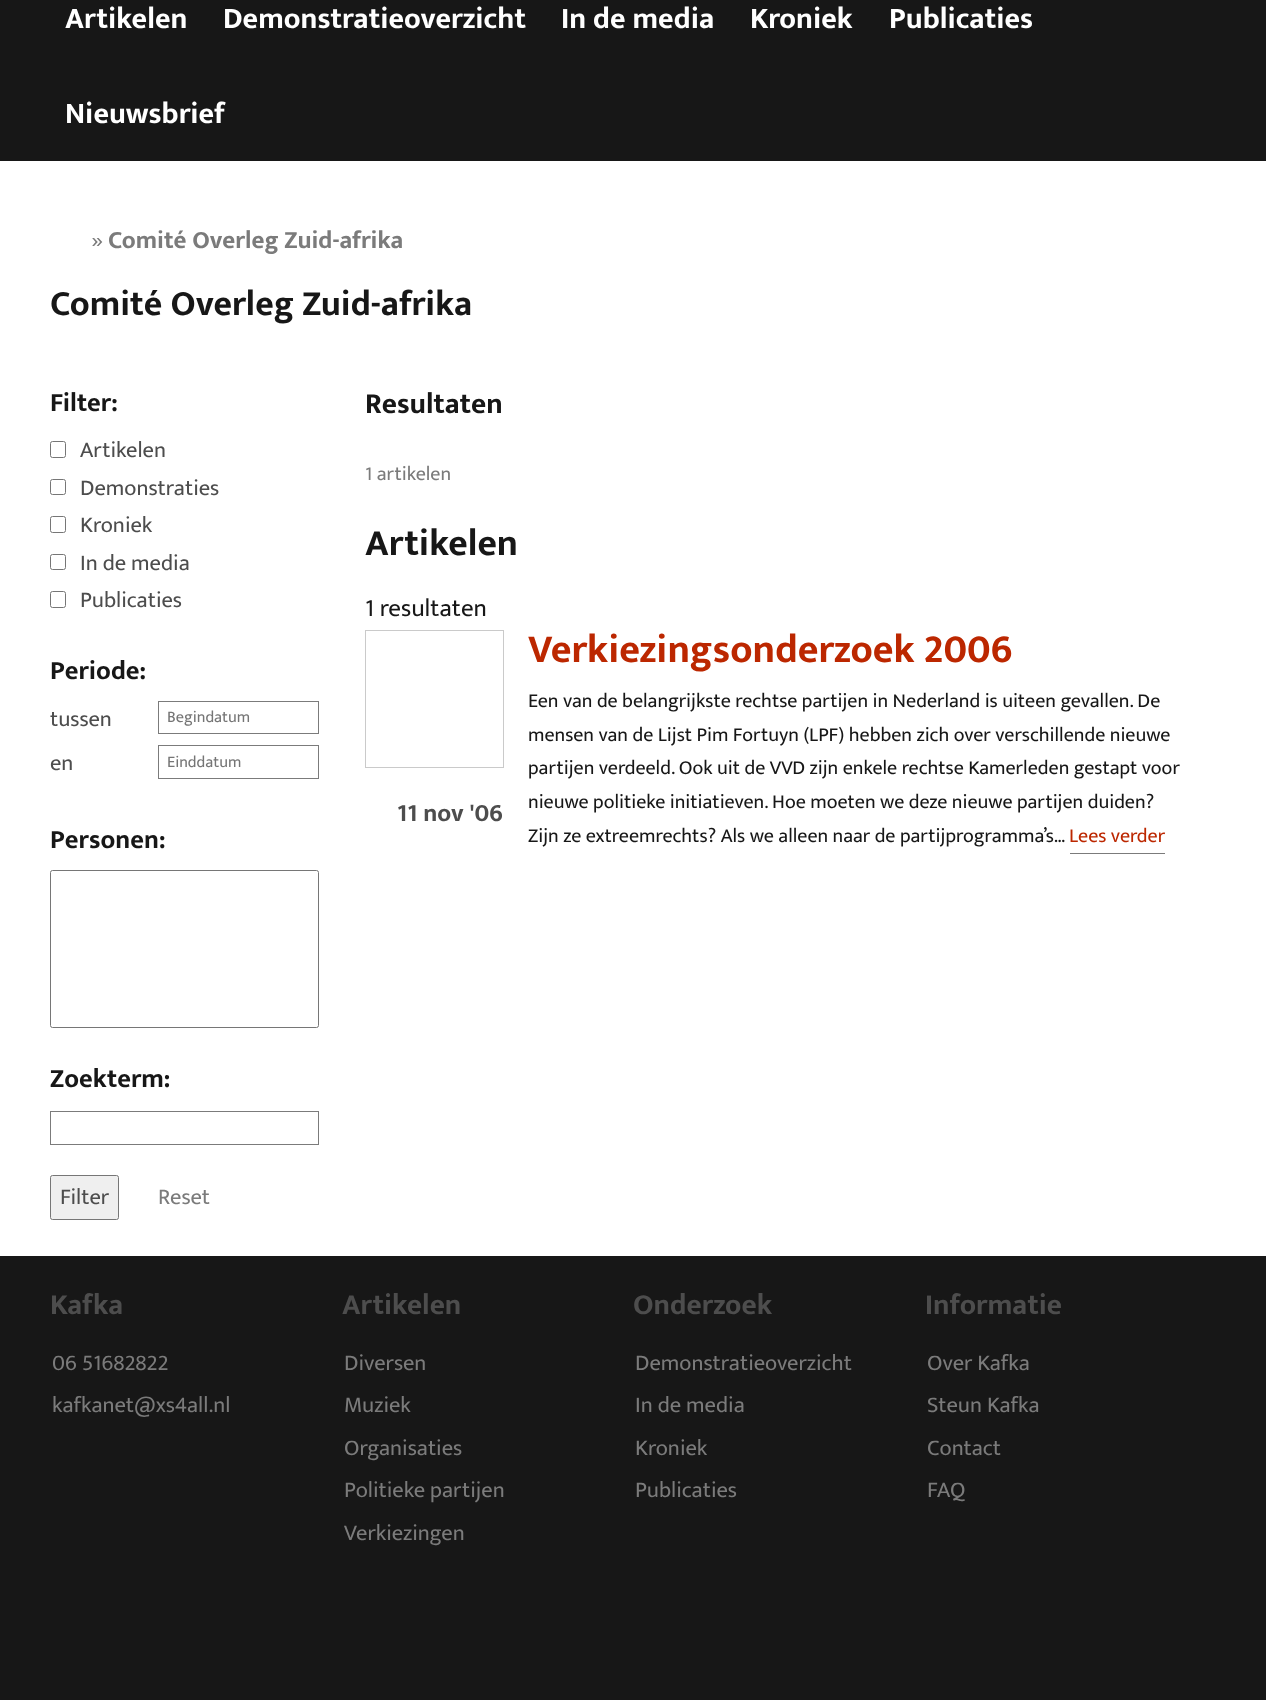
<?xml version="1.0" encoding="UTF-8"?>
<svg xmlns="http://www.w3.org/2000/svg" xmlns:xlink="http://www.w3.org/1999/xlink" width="1266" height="1700">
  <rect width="100%" height="100%" fill="#ffffff" />
  <rect width="1266" height="161" fill="#171717" />
  <rect x="50.5" y="441.5" width="15" height="16" rx="2" fill="none" stroke="#767676" />
  <rect x="50.5" y="479.5" width="15" height="15" rx="2" fill="none" stroke="#767676" />
  <rect x="50.5" y="516.5" width="15" height="16" rx="2" fill="none" stroke="#767676" />
  <rect x="50.5" y="554.5" width="15" height="15" rx="2" fill="none" stroke="#767676" />
  <rect x="50.5" y="591.5" width="15" height="16" rx="2" fill="none" stroke="#767676" />
  <rect x="158.5" y="701.5" width="160" height="32" fill="none" stroke="#7b7b7b" />
  <rect x="158.5" y="745.5" width="160" height="33" fill="none" stroke="#7b7b7b" />
  <rect x="50.5" y="870.5" width="268" height="157" rx="2" fill="none" stroke="#767676" />
  <rect x="50.5" y="1111.5" width="268" height="33" fill="none" stroke="#7b7b7b" />
  <rect x="50.5" y="1175.5" width="68" height="44" rx="2" fill="#efefef" stroke="#767676" />
  <rect x="365.5" y="630.5" width="138" height="137" fill="none" stroke="#cacaca" />
  <rect x="1070" y="853" width="95" height="1" fill="#7b7b7b" />
  <rect y="1256" width="1266" height="444" fill="#171717" />
  <text x="65" y="28" style="font-family: Ek Mukta; font-size: 30px; font-weight: bold; fill: #ffffff">Artikelen</text>
  <text x="223" y="28" style="font-family: Ek Mukta; font-size: 30px; font-weight: bold; fill: #ffffff">Demonstratieoverzicht</text>
  <text x="561" y="28" style="font-family: Ek Mukta; font-size: 30px; font-weight: bold; fill: #ffffff">In de media</text>
  <text x="750" y="28" style="font-family: Ek Mukta; font-size: 30px; font-weight: bold; fill: #ffffff">Kroniek</text>
  <text x="889" y="28" style="font-family: Ek Mukta; font-size: 30px; font-weight: bold; fill: #ffffff">Publicaties</text>
  <text x="65" y="123" style="font-family: Ek Mukta; font-size: 30px; font-weight: bold; fill: #ffffff">Nieuwsbrief</text>
  <text x="91" y="248" style="font-family: Ek Mukta; font-size: 25px; fill: #7b7b7b">»</text>
  <text x="108" y="248" style="font-family: Ek Mukta; font-size: 25px; font-weight: bold; fill: #7b7b7b">Comité Overleg Zuid-afrika</text>
  <text x="50" y="315" style="font-family: Ek Mukta; font-size: 35.75px; font-weight: bold; fill: #171717">Comité Overleg Zuid-afrika</text>
  <text x="50" y="411" style="font-family: Ek Mukta; font-size: 26.5px; font-weight: bold; fill: #171717">Filter:</text>
  <text x="80" y="457" style="font-family: Ek Mukta; font-size: 22.5px; fill: #4d4d4d">Artikelen</text>
  <text x="80" y="495" style="font-family: Ek Mukta; font-size: 22.5px; fill: #4d4d4d">Demonstraties</text>
  <text x="80" y="532" style="font-family: Ek Mukta; font-size: 22.5px; fill: #4d4d4d">Kroniek</text>
  <text x="80" y="570" style="font-family: Ek Mukta; font-size: 22.5px; fill: #4d4d4d">In de media</text>
  <text x="80" y="607" style="font-family: Ek Mukta; font-size: 22.5px; fill: #4d4d4d">Publicaties</text>
  <text x="50" y="679" style="font-family: Ek Mukta; font-size: 26.5px; font-weight: bold; fill: #171717">Periode:</text>
  <text x="50" y="726" style="font-family: Ek Mukta; font-size: 22.5px; fill: #4d4d4d">tussen</text>
  <text x="167" y="722" style="font-family: Ek Mukta; font-size: 16.25px; fill: #757575">Begindatum</text>
  <text x="50" y="770" style="font-family: Ek Mukta; font-size: 22.5px; fill: #4d4d4d">en</text>
  <text x="167" y="767" style="font-family: Ek Mukta; font-size: 16.25px; fill: #757575">Einddatum</text>
  <text x="50" y="848" style="font-family: Ek Mukta; font-size: 26.5px; font-weight: bold; fill: #171717">Personen:</text>
  <text x="50" y="1087" style="font-family: Ek Mukta; font-size: 26.5px; font-weight: bold; fill: #171717">Zoekterm:</text>
  <text x="60" y="1204" style="font-family: Ek Mukta; font-size: 22.5px; fill: #4d4d4d">Filter</text>
  <text x="158" y="1204" style="font-family: Ek Mukta; font-size: 22.5px; fill: #7b7b7b">Reset</text>
  <text x="365" y="413" style="font-family: Ek Mukta; font-size: 29.25px; font-weight: bold; fill: #171717">Resultaten</text>
  <text x="365" y="480" style="font-family: Ek Mukta; font-size: 20px; fill: #7b7b7b">1 artikelen</text>
  <text x="365" y="555" style="font-family: Ek Mukta; font-size: 37.5px; font-weight: bold; fill: #171717">Artikelen</text>
  <text x="365" y="616" style="font-family: Ek Mukta; font-size: 25px; fill: #171717">1 resultaten</text>
  <text x="397" y="821" style="font-family: Ek Mukta; font-size: 25px; font-weight: bold; fill: #4d4d4d">11 nov '06</text>
  <text x="528" y="662" style="font-family: Ek Mukta; font-size: 40px; font-weight: bold; fill: #bc2700">Verkiezingsonderzoek 2006</text>
  <text x="528" y="707" style="font-family: Ek Mukta; font-size: 20px; fill: #171717">Een van de belangrijkste rechtse partijen in Nederland is uiteen gevallen. De</text>
  <text x="528" y="741" style="font-family: Ek Mukta; font-size: 20px; fill: #171717">mensen van de Lijst Pim Fortuyn (LPF) hebben zich over verschillende nieuwe</text>
  <text x="528" y="774" style="font-family: Ek Mukta; font-size: 20px; fill: #171717">partijen verdeeld. Ook uit de VVD zijn enkele rechtse Kamerleden gestapt voor</text>
  <text x="528" y="808" style="font-family: Ek Mukta; font-size: 20px; fill: #171717">nieuwe politieke initiatieven. Hoe moeten we deze nieuwe partijen duiden?</text>
  <text x="528" y="842" style="font-family: Ek Mukta; font-size: 20px; fill: #171717">Zijn ze extreemrechts? Als we alleen naar de partijprogramma’s…</text>
  <text x="1069" y="842" style="font-family: Ek Mukta; font-size: 20px; fill: #bc2700">Lees verder</text>
  <text x="50" y="1314" style="font-family: Ek Mukta; font-size: 29.25px; font-weight: bold; fill: #4d4d4d">Kafka</text>
  <text x="52" y="1370" style="font-family: Ek Mukta; font-size: 22.5px; fill: #7b7b7b">06 51682822</text>
  <text x="52" y="1412" style="font-family: Ek Mukta; font-size: 22.5px; fill: #7b7b7b">kafkanet@xs4all.nl</text>
  <text x="342" y="1314" style="font-family: Ek Mukta; font-size: 29.25px; font-weight: bold; fill: #4d4d4d">Artikelen</text>
  <text x="344" y="1370" style="font-family: Ek Mukta; font-size: 22.5px; fill: #7b7b7b">Diversen</text>
  <text x="344" y="1412" style="font-family: Ek Mukta; font-size: 22.5px; fill: #7b7b7b">Muziek</text>
  <text x="344" y="1455" style="font-family: Ek Mukta; font-size: 22.5px; fill: #7b7b7b">Organisaties</text>
  <text x="344" y="1497" style="font-family: Ek Mukta; font-size: 22.5px; fill: #7b7b7b">Politieke partijen</text>
  <text x="344" y="1540" style="font-family: Ek Mukta; font-size: 22.5px; fill: #7b7b7b">Verkiezingen</text>
  <text x="633" y="1314" style="font-family: Ek Mukta; font-size: 29.25px; font-weight: bold; fill: #4d4d4d">Onderzoek</text>
  <text x="635" y="1370" style="font-family: Ek Mukta; font-size: 22.5px; fill: #7b7b7b">Demonstratieoverzicht</text>
  <text x="635" y="1412" style="font-family: Ek Mukta; font-size: 22.5px; fill: #7b7b7b">In de media</text>
  <text x="635" y="1455" style="font-family: Ek Mukta; font-size: 22.5px; fill: #7b7b7b">Kroniek</text>
  <text x="635" y="1497" style="font-family: Ek Mukta; font-size: 22.5px; fill: #7b7b7b">Publicaties</text>
  <text x="925" y="1314" style="font-family: Ek Mukta; font-size: 29.25px; font-weight: bold; fill: #4d4d4d">Informatie</text>
  <text x="927" y="1370" style="font-family: Ek Mukta; font-size: 22.5px; fill: #7b7b7b">Over Kafka</text>
  <text x="927" y="1412" style="font-family: Ek Mukta; font-size: 22.5px; fill: #7b7b7b">Steun Kafka</text>
  <text x="927" y="1455" style="font-family: Ek Mukta; font-size: 22.5px; fill: #7b7b7b">Contact</text>
  <text x="927" y="1497" style="font-family: Ek Mukta; font-size: 22.5px; fill: #7b7b7b">FAQ</text>
</svg>
